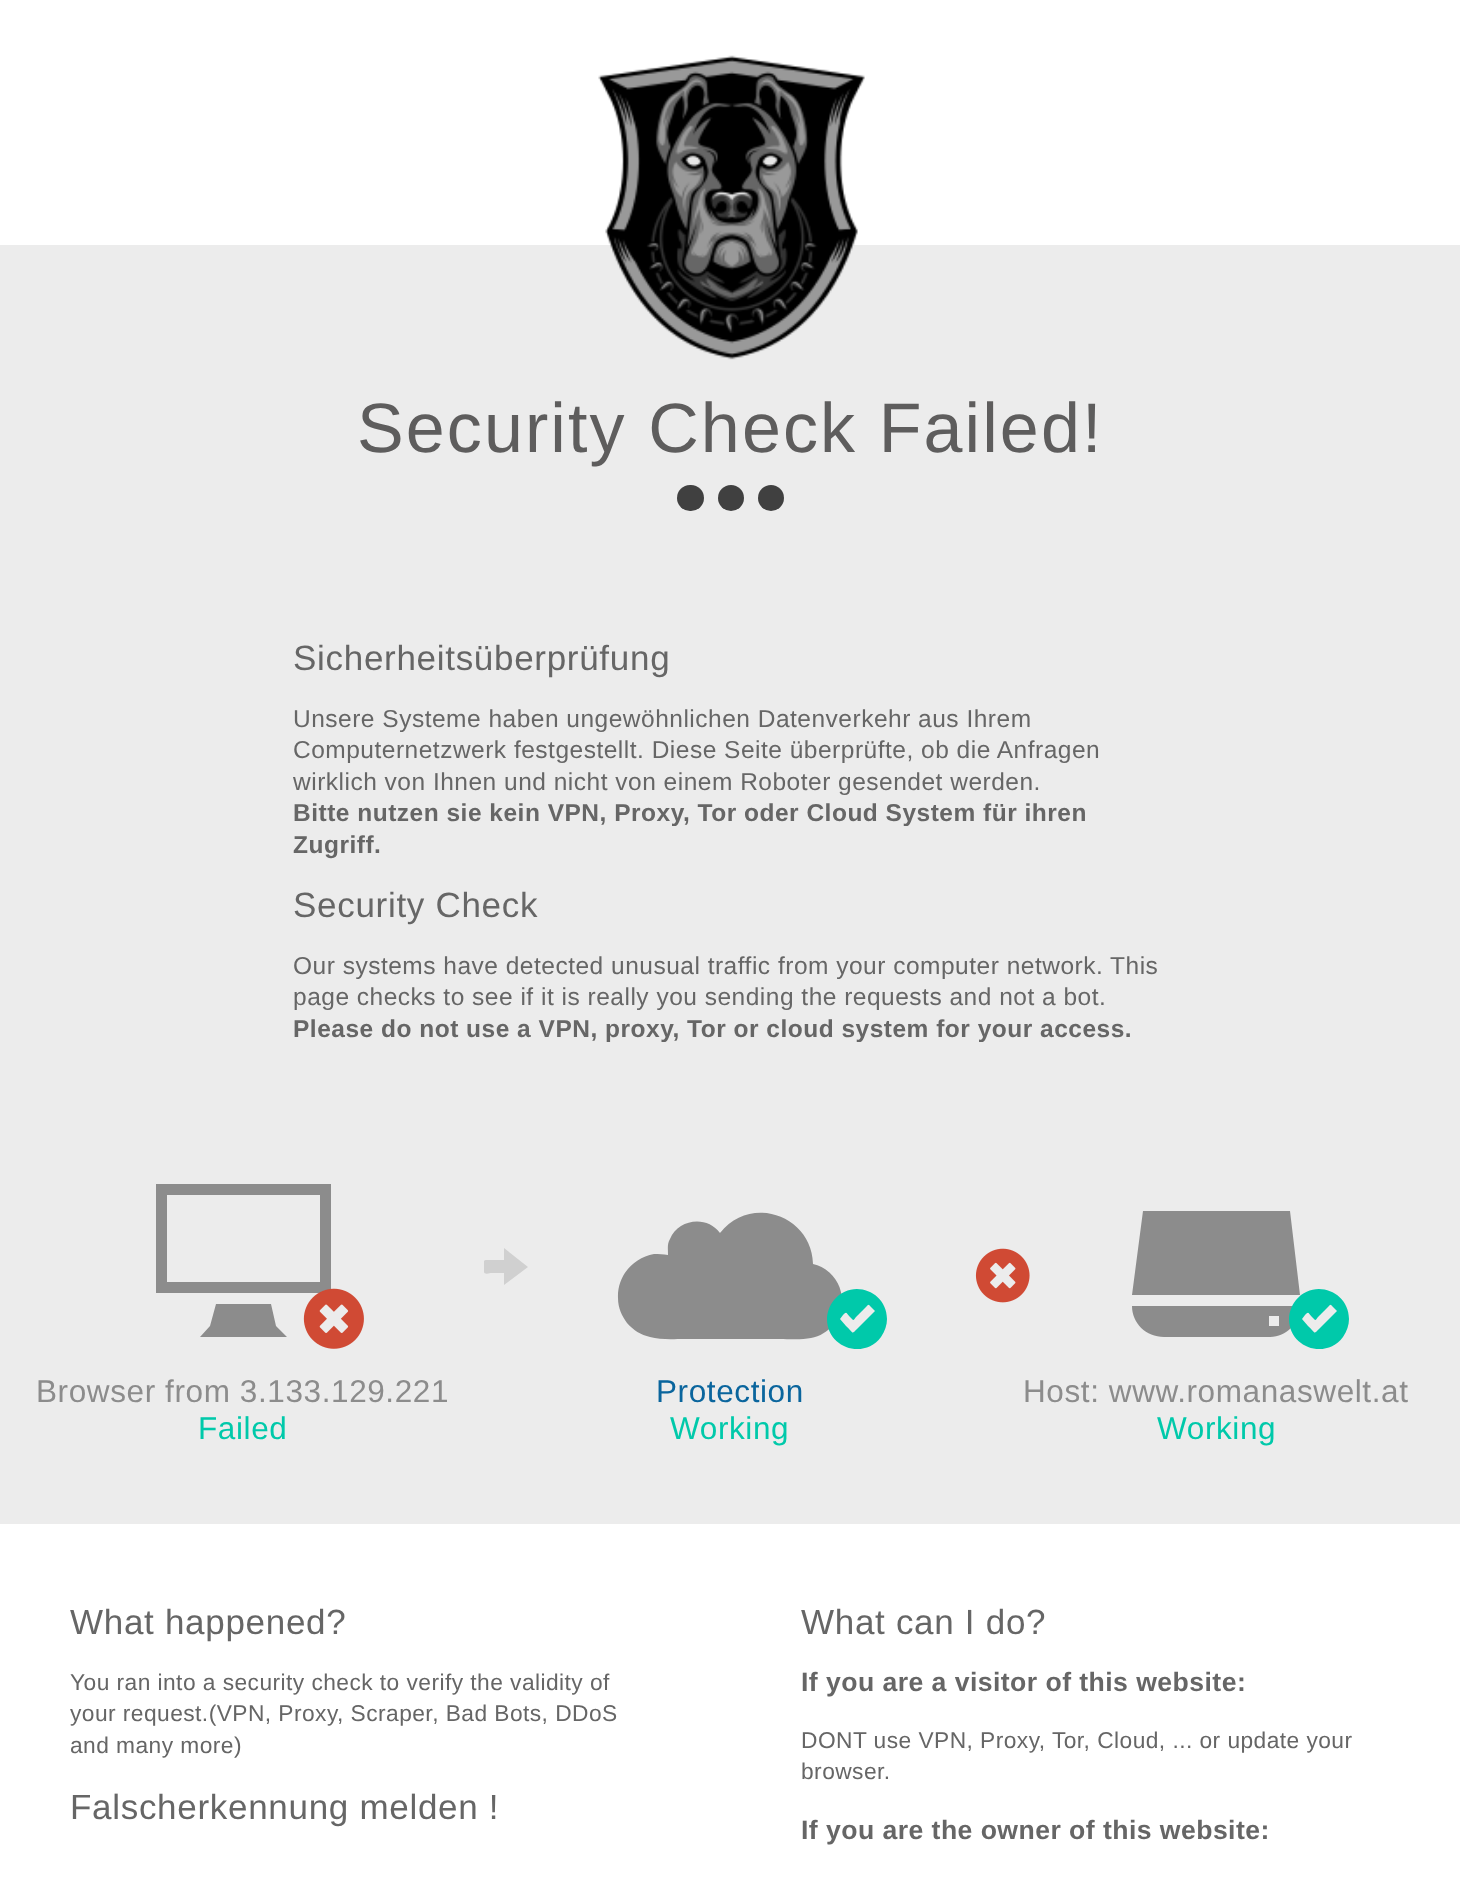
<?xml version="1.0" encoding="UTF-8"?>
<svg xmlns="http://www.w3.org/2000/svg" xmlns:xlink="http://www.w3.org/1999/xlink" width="1460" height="1877">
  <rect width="100%" height="100%" fill="#ffffff" />
  <rect y="245" width="1460" height="1279" fill="#ececec" />
  <image x="598" y="55" width="267" height="305" xlink:href="image1.png" />
  <rect x="677" y="485" width="27" height="26" rx="13" fill="#404040" />
  <circle cx="731" cy="498" r="13" fill="#404040" />
  <circle cx="771" cy="498" r="13" fill="#404040" />
  <path d="M 156 1184 v 109 h 175 v -109 z m 164 98 h -153 v -87 h 153 z m -49 22 h -55 l -6 22 l -10 11 h 87 l -11 -11 z" fill="#8c8c8c" />
  <image x="303" y="1288" width="61" height="61" xlink:href="image2.png" />
  <path d="M 484 1272 v -9 c 0 -3 0 -3 4 -3 h 16 v -12 l 24 19 l -24 18 v -12 h -13 c 0 0 -7 2 -7 -1 z" fill="#d0d0d0" />
  <path d="M 842 1301 c 0 -18 -12 -33 -29 -37 c -1 -49 -63 -70 -93 -31 c -13 -18 -42 -14 -50 6 c -3 5 -2 10 -2 16 c -5 -1 -9 -1 -14 -1 c -22 4 -37 23 -36 44 c 0 10 4 18 9 25 c 6 7 14 12 23 14 c 10 3 24 2 34 2 h 96 c 8 0 22 1 31 -1 c 18 -3 31 -20 31 -37 z" fill="#8c8c8c" />
  <path d="M 827 1319 c 0 -7 3 -14 7 -19 c 18 -22 53 -9 53 19 c 0 6 -2 12 -6 18 c -17 23 -54 11 -54 -18 z m 13 0 l 6 7 c 8 7 5 9 11 3 l 18 -18 l -4 -4 c -3 -3 -2 -3 -5 0 l -10 10 c -3 4 -2 4 -6 0 c -4 -4 -3 -6 -7 -2 z" fill="#00c9aa" />
  <image x="975" y="1248" width="55" height="55" xlink:href="image3.png" />
  <path d="M 1164 1337 h 105 c 9 0 16 -3 22 -9 c 6 -6 9 -14 9 -22 h -168 c 0 17 14 31 32 31 z m 105 -21 h 10 v 10 h -10 z m 21 -105 h -147 l -11 84 h 168 z" fill="#8c8c8c" />
  <path d="M 1289 1319 c 0 -7 3 -14 7 -19 c 18 -22 53 -9 53 19 c 0 6 -2 12 -6 18 c -17 23 -54 11 -54 -18 z m 13 0 l 6 7 c 8 7 5 9 11 3 l 18 -18 l -4 -4 c -3 -3 -2 -3 -5 0 l -10 10 c -3 4 -2 4 -6 0 c -4 -4 -3 -6 -7 -2 z" fill="#00c9aa" />
  <text x="357" y="452" style="font-family: Liberation Sans; font-size: 70px; letter-spacing: 2.1px; fill: #5e5d5d">Security Check Failed!</text>
  <text x="293" y="670" style="font-family: Liberation Sans; font-size: 35px; letter-spacing: 0.7px; fill: #666666">Sicherheitsüberprüfung</text>
  <text x="293" y="727" style="font-family: Liberation Sans; font-size: 24.5px; letter-spacing: 0.5px; fill: #666666">Unsere Systeme haben ungewöhnlichen Datenverkehr aus Ihrem</text>
  <text x="293" y="758" style="font-family: Liberation Sans; font-size: 24.5px; letter-spacing: 0.5px; fill: #666666">Computernetzwerk festgestellt. Diese Seite überprüfte, ob die Anfragen</text>
  <text x="293" y="790" style="font-family: Liberation Sans; font-size: 24.5px; letter-spacing: 0.5px; fill: #666666">wirklich von Ihnen und nicht von einem Roboter gesendet werden.</text>
  <text x="293" y="821" style="font-family: Liberation Sans; font-size: 24.5px; font-weight: bold; letter-spacing: 0.5px; fill: #666666">Bitte nutzen sie kein VPN, Proxy, Tor oder Cloud System für ihren</text>
  <text x="293" y="853" style="font-family: Liberation Sans; font-size: 24.5px; font-weight: bold; letter-spacing: 0.5px; fill: #666666">Zugriff.</text>
  <text x="293" y="917" style="font-family: Liberation Sans; font-size: 35px; letter-spacing: 0.7px; fill: #666666">Security Check</text>
  <text x="293" y="974" style="font-family: Liberation Sans; font-size: 24.5px; letter-spacing: 0.5px; fill: #666666">Our systems have detected unusual traffic from your computer network. This</text>
  <text x="293" y="1005" style="font-family: Liberation Sans; font-size: 24.5px; letter-spacing: 0.5px; fill: #666666">page checks to see if it is really you sending the requests and not a bot.</text>
  <text x="293" y="1037" style="font-family: Liberation Sans; font-size: 24.5px; font-weight: bold; letter-spacing: 0.5px; fill: #666666">Please do not use a VPN, proxy, Tor or cloud system for your access.</text>
  <text x="36" y="1402" style="font-family: Liberation Sans; font-size: 31.5px; letter-spacing: 0.6px; fill: #8c8c8c">Browser from 3.133.129.221</text>
  <text x="198" y="1439" style="font-family: Liberation Sans; font-size: 31.5px; letter-spacing: 0.6px; fill: #00c9aa">Failed</text>
  <text x="656" y="1402" style="font-family: Liberation Sans; font-size: 31.5px; letter-spacing: 0.6px; fill: #0a659d">Protection</text>
  <text x="670" y="1439" style="font-family: Liberation Sans; font-size: 31.5px; letter-spacing: 0.6px; fill: #00c9aa">Working</text>
  <text x="1023" y="1402" style="font-family: Liberation Sans; font-size: 31.5px; letter-spacing: 0.6px; fill: #8c8c8c">Host: www.romanaswelt.at</text>
  <text x="1157" y="1439" style="font-family: Liberation Sans; font-size: 31.5px; letter-spacing: 0.6px; fill: #00c9aa">Working</text>
  <text x="70" y="1634" style="font-family: Liberation Sans; font-size: 35px; letter-spacing: 0.7px; fill: #666666">What happened?</text>
  <text x="70" y="1690" style="font-family: Liberation Sans; font-size: 22.75px; letter-spacing: 0.45px; fill: #666666">You ran into a security check to verify the validity of</text>
  <text x="70" y="1721" style="font-family: Liberation Sans; font-size: 22.75px; letter-spacing: 0.45px; fill: #666666">your request.(VPN, Proxy, Scraper, Bad Bots, DDoS</text>
  <text x="70" y="1753" style="font-family: Liberation Sans; font-size: 22.75px; letter-spacing: 0.45px; fill: #666666">and many more)</text>
  <text x="70" y="1819" style="font-family: Liberation Sans; font-size: 35px; letter-spacing: 0.7px; fill: #666666">Falscherkennung melden !</text>
  <text x="801" y="1634" style="font-family: Liberation Sans; font-size: 35px; letter-spacing: 0.7px; fill: #666666">What can I do?</text>
  <text x="801" y="1691" style="font-family: Liberation Sans; font-size: 26.6px; font-weight: bold; letter-spacing: 0.45px; fill: #666666">If you are a visitor of this website:</text>
  <text x="801" y="1748" style="font-family: Liberation Sans; font-size: 22.75px; letter-spacing: 0.45px; fill: #666666">DONT use VPN, Proxy, Tor, Cloud, ... or update your</text>
  <text x="801" y="1779" style="font-family: Liberation Sans; font-size: 22.75px; letter-spacing: 0.45px; fill: #666666">browser.</text>
  <text x="801" y="1839" style="font-family: Liberation Sans; font-size: 26.6px; font-weight: bold; letter-spacing: 0.45px; fill: #666666">If you are the owner of this website:</text>
</svg>
